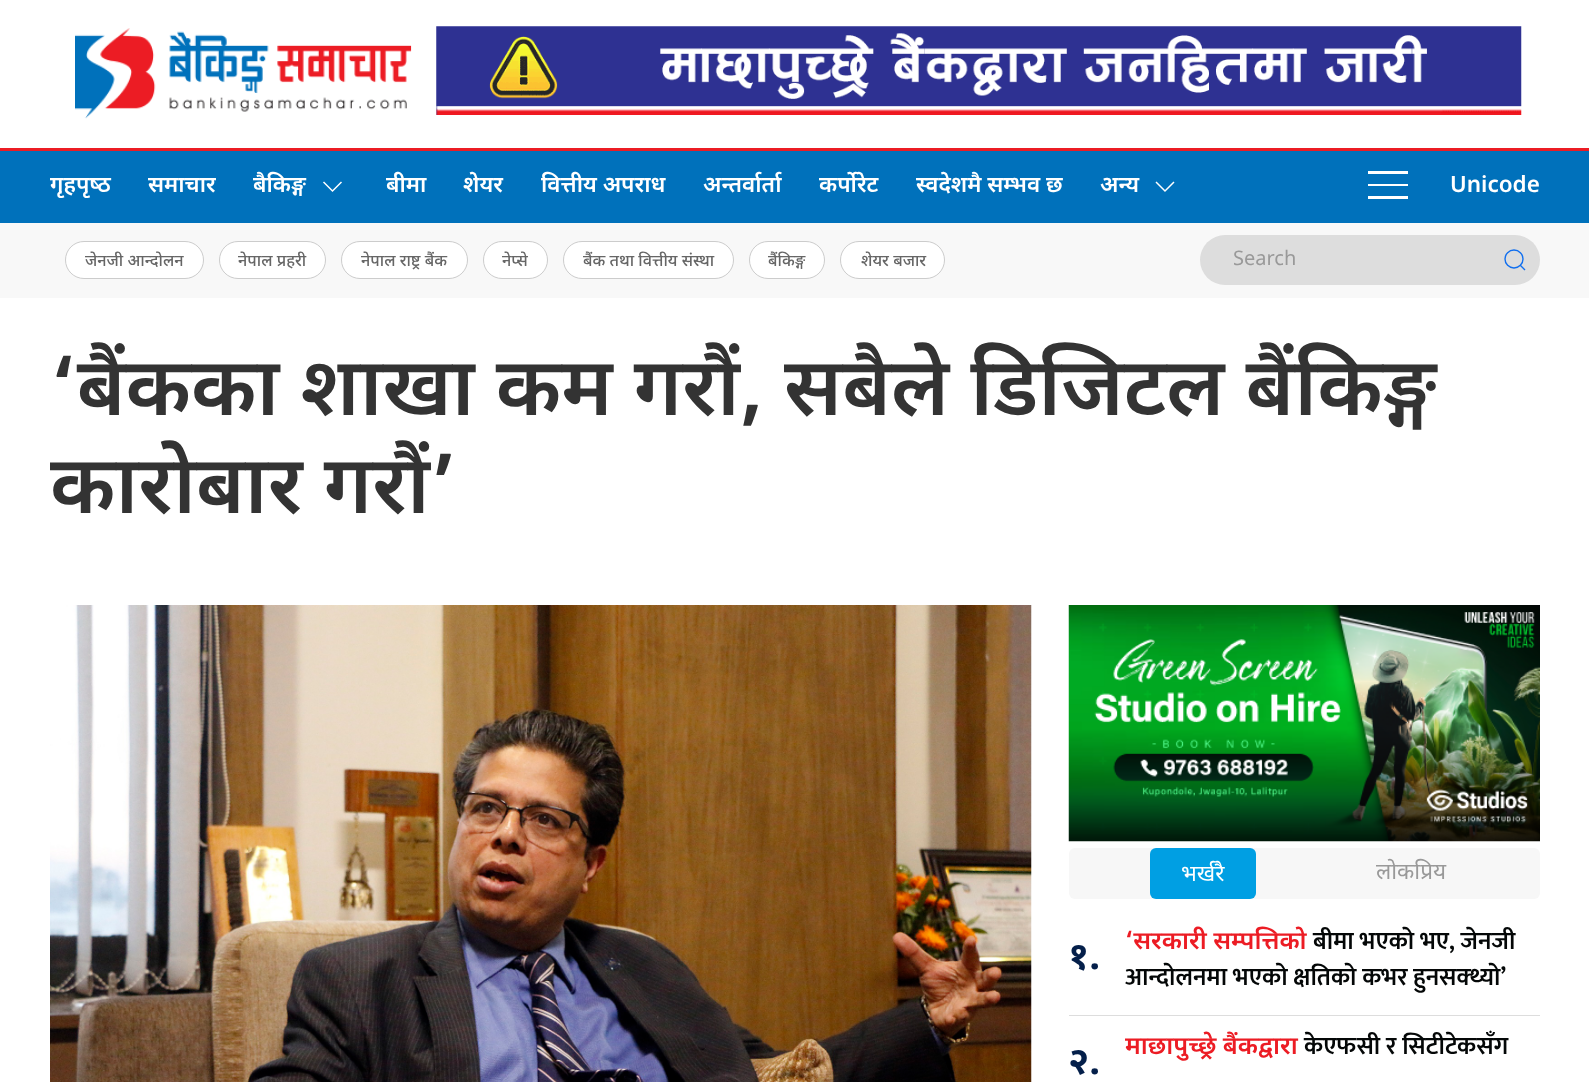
<?xml version="1.0" encoding="UTF-8"?>
<svg xmlns="http://www.w3.org/2000/svg" xmlns:xlink="http://www.w3.org/1999/xlink" width="1589" height="1082">
  <rect width="100%" height="100%" fill="#ffffff" />
  <image x="75" y="28" width="337" height="91" xlink:href="image1.png" />
  <image x="436" y="26" width="1086" height="89" xlink:href="image2.png" />
  <rect y="151" width="1589" height="72" fill="#0071bb" />
  <rect y="148" width="1589" height="3" fill="#ec1c24" />
  <path d="M 341.5 182 l -9 9 l -9 -9" fill="none" stroke="#ffffff" stroke-width="1.5" />
  <path d="M 1174 182 l -9 9 l -9 -9" fill="none" stroke="#ffffff" stroke-width="1.5" />
  <rect x="1368" y="171" width="40" height="3" fill="#ffffff" />
  <rect x="1368" y="184" width="40" height="2" fill="#ffffff" />
  <rect x="1368" y="196" width="40" height="3" fill="#ffffff" />
  <rect y="223" width="1589" height="75" fill="#f8f8f8" />
  <rect x="65.5" y="241.5" width="138" height="37" rx="18.5" fill="#ffffff" stroke="#cccccc" />
  <rect x="219.5" y="241.5" width="106" height="37" rx="18.5" fill="#ffffff" stroke="#cccccc" />
  <rect x="341.5" y="241.5" width="126" height="37" rx="18.5" fill="#ffffff" stroke="#cccccc" />
  <rect x="483.5" y="241.5" width="64" height="37" rx="18.5" fill="#ffffff" stroke="#cccccc" />
  <rect x="563.5" y="241.5" width="170" height="37" rx="18.5" fill="#ffffff" stroke="#cccccc" />
  <rect x="749.5" y="241.5" width="75" height="37" rx="18.5" fill="#ffffff" stroke="#cccccc" />
  <rect x="840.5" y="241.5" width="104" height="37" rx="18.5" fill="#ffffff" stroke="#cccccc" />
  <rect x="1200" y="235" width="340" height="50" rx="25" fill="#dddddd" />
  <circle cx="1514" cy="259" r="9" fill="none" stroke="#116fef" stroke-width="1.4" />
  <path d="M 1520 265 l 5 5 z" fill="none" stroke="#116fef" stroke-width="1.4" />
  <image x="50" y="605" width="982" height="477" xlink:href="image3.png" />
  <image x="1068" y="605" width="472" height="237" xlink:href="image4.png" />
  <rect x="1069" y="848" width="471" height="51" rx="6" fill="#f7f7f7" />
  <rect x="1150" y="848" width="106" height="51" rx="6" fill="#009fe3" />
  <rect x="1069" y="1015" width="471" height="1" fill="#dddddd" />
  <text x="50" y="192" style="font-family: Noto Sans Devanagari; font-size: 22.5px; font-weight: 600; fill: #ffffff">गृहपृष्‍ठ</text>
  <text x="148" y="192" style="font-family: Noto Sans Devanagari; font-size: 22.5px; font-weight: 600; fill: #ffffff">समाचार</text>
  <text x="253" y="192" style="font-family: Noto Sans Devanagari; font-size: 22.5px; font-weight: 600; fill: #ffffff">बैकिङ्ग</text>
  <text x="386" y="192" style="font-family: Noto Sans Devanagari; font-size: 22.5px; font-weight: 600; fill: #ffffff">बीमा</text>
  <text x="463" y="192" style="font-family: Noto Sans Devanagari; font-size: 22.5px; font-weight: 600; fill: #ffffff">शेयर</text>
  <text x="541" y="192" style="font-family: Noto Sans Devanagari; font-size: 22.5px; font-weight: 600; fill: #ffffff">वित्तीय अपराध</text>
  <text x="703" y="192" style="font-family: Noto Sans Devanagari; font-size: 22.5px; font-weight: 600; fill: #ffffff">अन्तर्वार्ता</text>
  <text x="819" y="192" style="font-family: Noto Sans Devanagari; font-size: 22.5px; font-weight: 600; fill: #ffffff">कर्पोरेट</text>
  <text x="916" y="192" style="font-family: Noto Sans Devanagari; font-size: 22.5px; font-weight: 600; fill: #ffffff">स्वदेशमै सम्भव छ</text>
  <text x="1100" y="192" style="font-family: Noto Sans Devanagari; font-size: 22.5px; font-weight: 600; fill: #ffffff">अन्य</text>
  <text x="1450" y="192" style="font-family: Noto Sans Devanagari; font-size: 22.5px; font-weight: 600; fill: #ffffff">Unicode</text>
  <text x="85" y="266" style="font-family: Noto Sans; font-size: 16.25px; font-weight: 500; fill: #666666">जेनजी आन्दोलन</text>
  <text x="238" y="266" style="font-family: Noto Sans; font-size: 16.25px; font-weight: 500; fill: #666666">नेपाल प्रहरी</text>
  <text x="361" y="266" style="font-family: Noto Sans; font-size: 16.25px; font-weight: 500; fill: #666666">नेपाल राष्ट्र बैंक</text>
  <text x="502" y="266" style="font-family: Noto Sans; font-size: 16.25px; font-weight: 500; fill: #666666">नेप्से</text>
  <text x="583" y="266" style="font-family: Noto Sans; font-size: 16.25px; font-weight: 500; fill: #666666">बैंक तथा वित्तीय संस्था</text>
  <text x="768" y="266" style="font-family: Noto Sans; font-size: 16.25px; font-weight: 500; fill: #666666">बैंकिङ्ग</text>
  <text x="861" y="266" style="font-family: Noto Sans; font-size: 16.25px; font-weight: 500; fill: #666666">शेयर बजार</text>
  <text x="1233" y="265" style="font-family: Noto Sans Devanagari; font-size: 20px; fill: #999999">Search</text>
  <text x="50" y="415" style="font-family: Noto Sans Devanagari; font-size: 81.25px; font-weight: 600; fill: #333333">‘बैंकका शाखा कम गरौं, सबैले डिजिटल बैंकिङ्ग</text>
  <text x="50" y="513" style="font-family: Noto Sans Devanagari; font-size: 81.25px; font-weight: 600; fill: #333333">कारोबार गरौं’</text>
  <text x="1181" y="881" style="font-family: Noto Sans Devanagari; font-size: 22.5px; fill: #ffffff">भर्खरै</text>
  <text x="1376" y="879" style="font-family: Noto Sans Devanagari; font-size: 22.5px; fill: #999999">लोकप्रिय</text>
  <text x="1068" y="969" style="font-family: Noto Sans Devanagari; font-size: 38px; font-weight: bold; fill: #041f4a">१.</text>
  <text x="1125" y="949" style="font-family: Noto Sans Devanagari; font-size: 25px; font-weight: 600; fill: #ec1c24">‘सरकारी सम्पत्तिको</text>
  <text x="1313" y="949" style="font-family: Mukta; font-size: 25px; font-weight: 600; fill: #040707">बीमा भएको भए, जेनजी</text>
  <text x="1125" y="985" style="font-family: Mukta; font-size: 25px; font-weight: 600; fill: #040707">आन्दोलनमा भएको क्षतिको कभर हुनसक्थ्यो’</text>
  <text x="1068" y="1074" style="font-family: Noto Sans Devanagari; font-size: 38px; font-weight: bold; fill: #041f4a">२.</text>
  <text x="1125" y="1054" style="font-family: Noto Sans Devanagari; font-size: 25px; font-weight: 600; fill: #ec1c24">माछापुच्छ्रे बैंकद्वारा</text>
  <text x="1304" y="1054" style="font-family: Mukta; font-size: 25px; font-weight: 600; fill: #040707">केएफसी र सिटीटेकसँग</text>
</svg>
